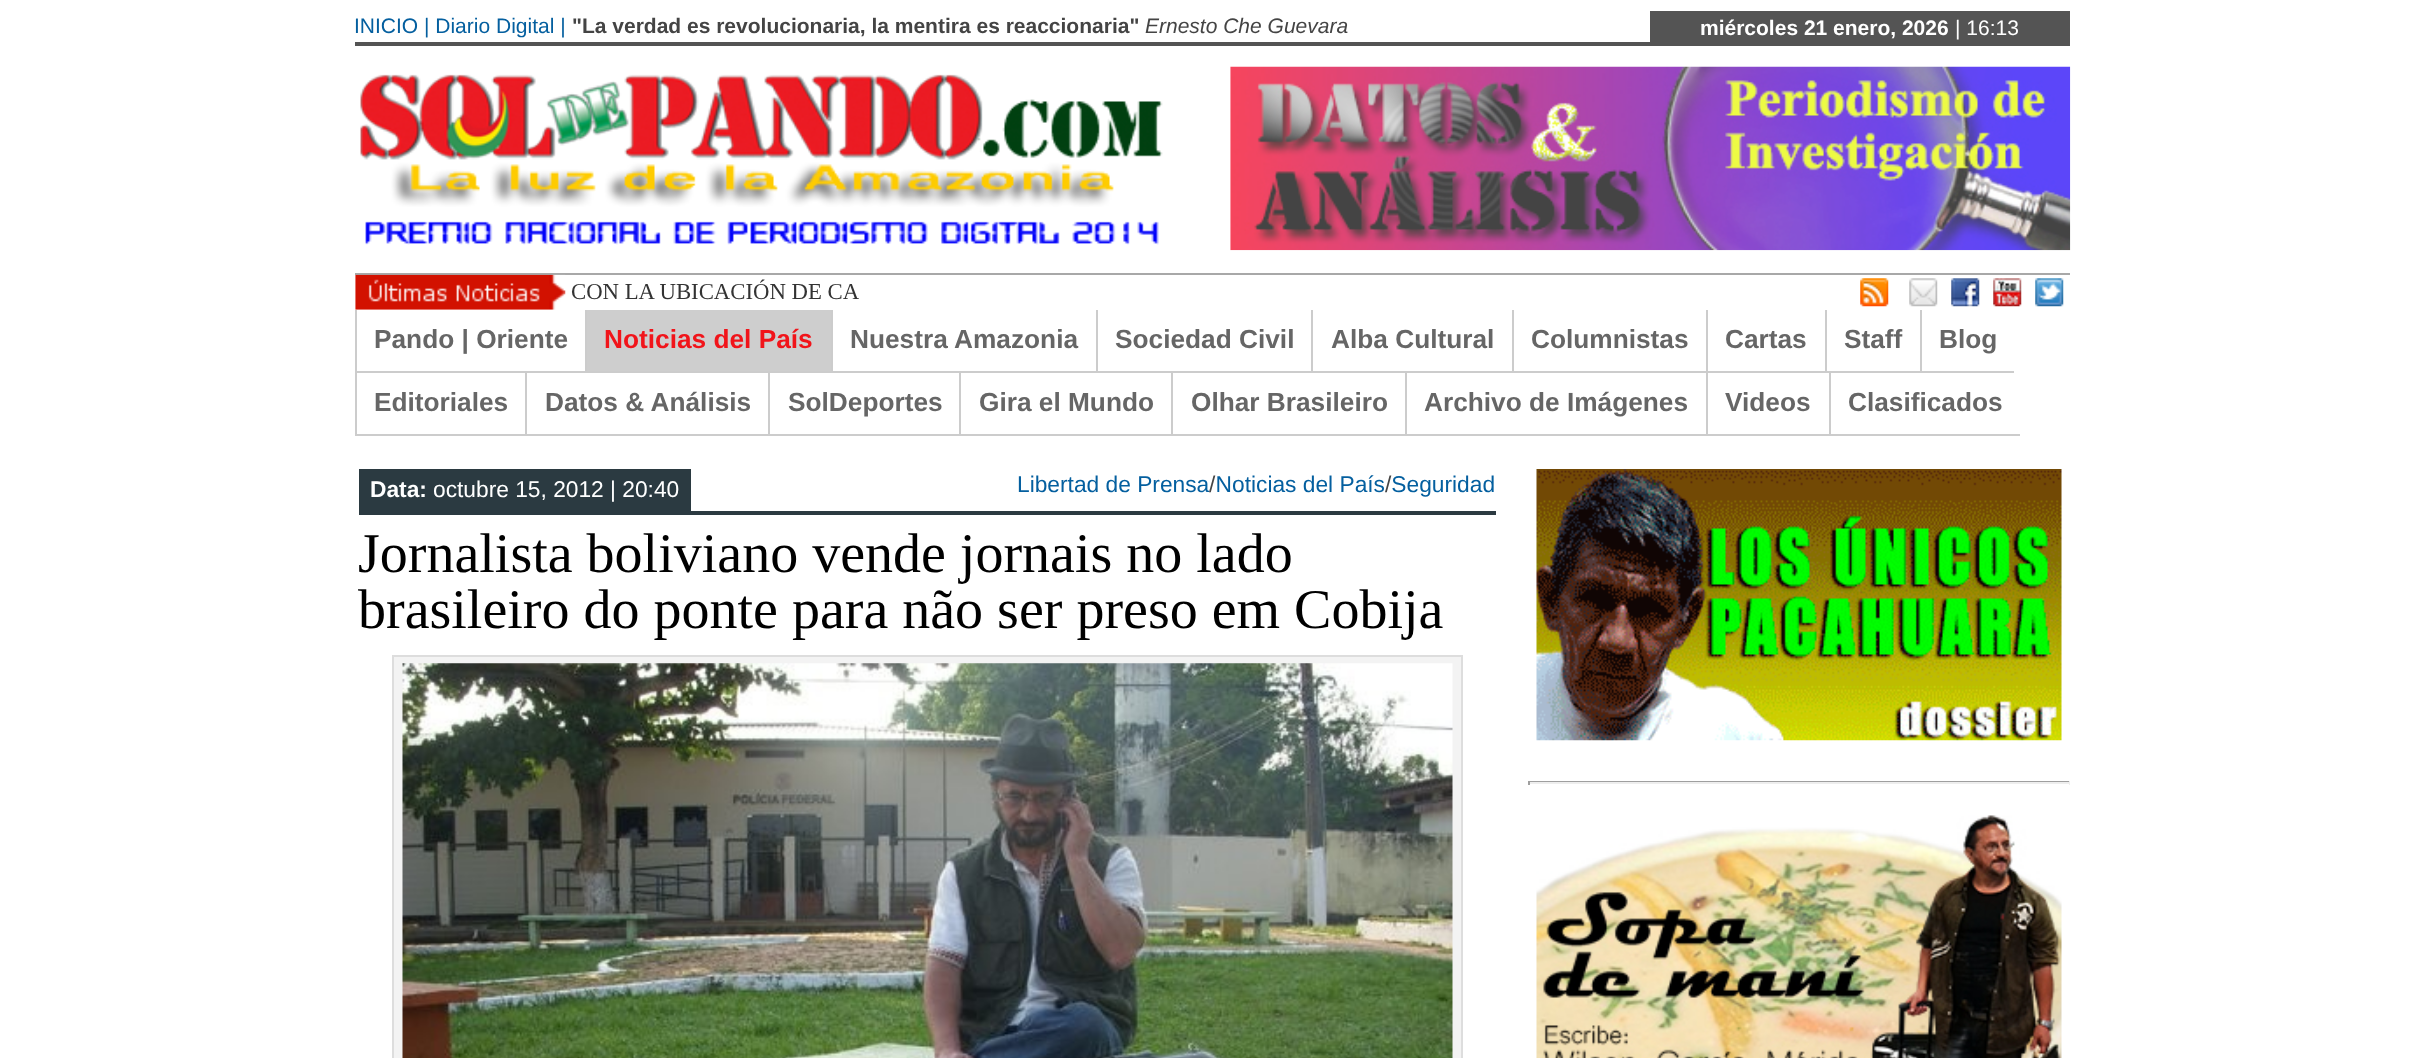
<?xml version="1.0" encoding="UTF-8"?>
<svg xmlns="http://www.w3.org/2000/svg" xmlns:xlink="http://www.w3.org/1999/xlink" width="2423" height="1058">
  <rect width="100%" height="100%" fill="#ffffff" />
  <rect x="355" y="42" width="1715" height="4" fill="#545454" />
  <rect x="1650" y="11" width="420" height="31" fill="#545454" />
  <image x="360" y="74" width="803" height="171" xlink:href="image1.png" />
  <image x="1230" y="66" width="841" height="185" xlink:href="image2.png" />
  <rect x="355" y="273" width="1715" height="2" fill="#a8a8a8" />
  <image x="355" y="274" width="211" height="36" xlink:href="image3.png" />
  <image x="1860" y="278" width="29" height="29" xlink:href="image4.png" />
  <image x="1909" y="278" width="29" height="29" xlink:href="image5.png" />
  <image x="1951" y="278" width="29" height="29" xlink:href="image6.png" />
  <image x="1993" y="278" width="29" height="29" xlink:href="image7.png" />
  <image x="2035" y="278" width="29" height="29" xlink:href="image8.png" />
  <rect x="355" y="371" width="1659" height="2" fill="#cccccc" />
  <rect x="355" y="310" width="2" height="63" fill="#cccccc" />
  <rect x="585" y="310" width="2" height="63" fill="#cccccc" />
  <rect x="587" y="310" width="244" height="61" fill="#cecece" />
  <rect x="831" y="310" width="2" height="63" fill="#cccccc" />
  <rect x="1096" y="310" width="2" height="63" fill="#cccccc" />
  <rect x="1311" y="310" width="2" height="63" fill="#cccccc" />
  <rect x="1512" y="310" width="2" height="63" fill="#cccccc" />
  <rect x="1706" y="310" width="2" height="63" fill="#cccccc" />
  <rect x="1825" y="310" width="2" height="63" fill="#cccccc" />
  <rect x="1920" y="310" width="2" height="63" fill="#cccccc" />
  <rect x="355" y="434" width="1665" height="2" fill="#cccccc" />
  <rect x="355" y="373" width="2" height="63" fill="#cccccc" />
  <rect x="525" y="373" width="2" height="63" fill="#cccccc" />
  <rect x="768" y="373" width="2" height="63" fill="#cccccc" />
  <rect x="959" y="373" width="2" height="63" fill="#cccccc" />
  <rect x="1171" y="373" width="2" height="63" fill="#cccccc" />
  <rect x="1405" y="373" width="2" height="63" fill="#cccccc" />
  <rect x="1706" y="373" width="2" height="63" fill="#cccccc" />
  <rect x="1829" y="373" width="2" height="63" fill="#cccccc" />
  <rect x="359" y="511" width="1137" height="4" fill="#2b3a41" />
  <rect x="359" y="469" width="332" height="42" fill="#2b3a41" />
  <rect x="393" y="656" width="1069" height="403" fill="#f3f3f3" stroke="#dddddd" stroke-width="2" />
  <image x="402" y="663" width="1051" height="395" xlink:href="image9.png" />
  <image x="1536" y="469" width="526" height="272" xlink:href="image10.png" />
  <rect x="1528" y="781" width="542" height="1" fill="#9f9f9f" />
  <rect x="2069" y="781" width="1" height="4" fill="#eeeeee" />
  <rect x="1528" y="782" width="542" height="2" fill="#eeeeee" />
  <rect x="1528" y="781" width="2" height="4" fill="#9f9f9f" />
  <image x="1536" y="815" width="526" height="243" xlink:href="image11.png" />
  <text x="354" y="33" style="font-family: Liberation Sans; font-size: 21px; fill: #045f9f">INICIO | Diario Digital |</text>
  <text x="572" y="33" style="font-family: Liberation Sans; font-size: 21px; font-weight: bold; fill: #444444">"La verdad es revolucionaria, la mentira es reaccionaria"</text>
  <text x="1145" y="33" style="font-family: Liberation Sans; font-size: 21px; font-style: italic; fill: #444444">Ernesto Che Guevara</text>
  <text x="1700" y="35" style="font-family: Liberation Sans; font-size: 21px; font-weight: bold; fill: #ffffff">miércoles 21 enero, 2026</text>
  <text x="1955" y="35" style="font-family: Liberation Sans; font-size: 21px; fill: #ffffff">| 16:13</text>
  <text x="571" y="299" style="font-family: Liberation Serif; font-size: 22.75px; fill: #333333">CON LA UBICACIÓN DE CA</text>
  <text x="374" y="348" style="font-family: Liberation Sans; font-size: 26.25px; font-weight: bold; fill: #666666">Pando | Oriente</text>
  <text x="604" y="348" style="font-family: Liberation Sans; font-size: 26.25px; font-weight: bold; fill: #f1141a">Noticias del País</text>
  <text x="850" y="348" style="font-family: Liberation Sans; font-size: 26.25px; font-weight: bold; fill: #666666">Nuestra Amazonia</text>
  <text x="1115" y="348" style="font-family: Liberation Sans; font-size: 26.25px; font-weight: bold; fill: #666666">Sociedad Civil</text>
  <text x="1331" y="348" style="font-family: Liberation Sans; font-size: 26.25px; font-weight: bold; fill: #666666">Alba Cultural</text>
  <text x="1531" y="348" style="font-family: Liberation Sans; font-size: 26.25px; font-weight: bold; fill: #666666">Columnistas</text>
  <text x="1725" y="348" style="font-family: Liberation Sans; font-size: 26.25px; font-weight: bold; fill: #666666">Cartas</text>
  <text x="1844" y="348" style="font-family: Liberation Sans; font-size: 26.25px; font-weight: bold; fill: #666666">Staff</text>
  <text x="1939" y="348" style="font-family: Liberation Sans; font-size: 26.25px; font-weight: bold; fill: #666666">Blog</text>
  <text x="374" y="411" style="font-family: Liberation Sans; font-size: 26.25px; font-weight: bold; fill: #666666">Editoriales</text>
  <text x="545" y="411" style="font-family: Liberation Sans; font-size: 26.25px; font-weight: bold; fill: #666666">Datos &amp; Análisis</text>
  <text x="788" y="411" style="font-family: Liberation Sans; font-size: 26.25px; font-weight: bold; fill: #666666">SolDeportes</text>
  <text x="979" y="411" style="font-family: Liberation Sans; font-size: 26.25px; font-weight: bold; fill: #666666">Gira el Mundo</text>
  <text x="1191" y="411" style="font-family: Liberation Sans; font-size: 26.25px; font-weight: bold; fill: #666666">Olhar Brasileiro</text>
  <text x="1424" y="411" style="font-family: Liberation Sans; font-size: 26.25px; font-weight: bold; fill: #666666">Archivo de Imágenes</text>
  <text x="1725" y="411" style="font-family: Liberation Sans; font-size: 26.25px; font-weight: bold; fill: #666666">Videos</text>
  <text x="1848" y="411" style="font-family: Liberation Sans; font-size: 26.25px; font-weight: bold; fill: #666666">Clasificados</text>
  <text x="370" y="497" style="font-family: Liberation Sans; font-size: 22.75px; font-weight: bold; fill: #ffffff">Data:</text>
  <text x="433" y="497" style="font-family: Liberation Sans; font-size: 22.75px; fill: #ffffff">octubre 15, 2012 | 20:40</text>
  <text x="1017" y="492" style="font-family: Liberation Sans; font-size: 22.75px; fill: #045f9f">Libertad de Prensa Noticias del País Seguridad</text>
  <text x="1209" y="492" style="font-family: Liberation Sans; font-size: 22.75px; fill: #444444">/</text>
  <text x="1385" y="492" style="font-family: Liberation Sans; font-size: 22.75px; fill: #444444">/</text>
  <text x="358" y="572" style="font-family: Liberation Serif; font-size: 56px; fill: #000000">Jornalista boliviano vende jornais no lado</text>
  <text x="358" y="628" style="font-family: Liberation Serif; font-size: 56px; fill: #000000">brasileiro do ponte para não ser preso em Cobija</text>
</svg>
